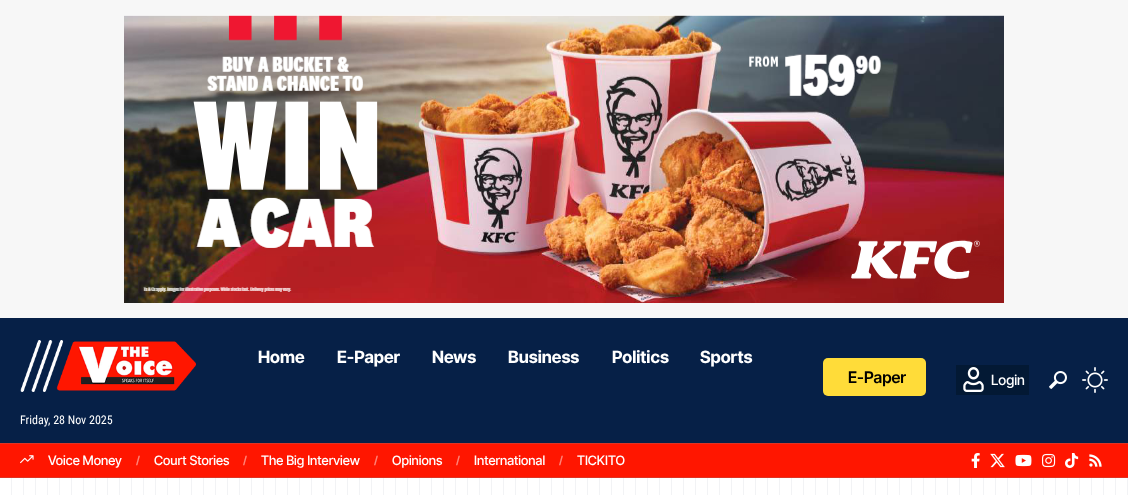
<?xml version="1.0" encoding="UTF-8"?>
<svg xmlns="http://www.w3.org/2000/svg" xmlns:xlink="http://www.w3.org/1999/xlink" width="1128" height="495">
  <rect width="100%" height="100%" fill="#ffffff" />
  <rect width="1128" height="318" fill="#f7f7f7" />
  <image x="124" y="15" width="880" height="288" xlink:href="image1.png" />
  <rect y="318" width="1128" height="125" fill="#062047" />
  <image x="20" y="340" width="176" height="52" xlink:href="image2.png" />
  <rect x="823" y="358" width="103" height="38" rx="5" fill="#ffdc39" />
  <rect x="956" y="365" width="73" height="30" fill="#031934" />
  <image x="963" y="367" width="21" height="25" xlink:href="image3.png" />
  <image x="1049" y="371" width="18" height="18" xlink:href="image4.png" />
  <image x="1082" y="367" width="26" height="26" xlink:href="image5.png" />
  <rect y="444" width="1128" height="33" fill="#ff1600" />
  <rect y="443" width="1128" height="1" fill="#df3424" />
  <rect y="477" width="1128" height="1" fill="#df3424" />
  <image x="20" y="455" width="14" height="9" xlink:href="image6.png" />
  <image x="971" y="453" width="9" height="15" xlink:href="image7.png" />
  <image x="990" y="453" width="15" height="15" xlink:href="image8.png" />
  <image x="1015" y="454" width="17" height="13" xlink:href="image9.png" />
  <image x="1042" y="453" width="14" height="15" xlink:href="image10.png" />
  <image x="1065" y="453" width="14" height="15" xlink:href="image11.png" />
  <image x="1089" y="454" width="13" height="13" xlink:href="image12.png" />
  <image x="11" y="478" width="1117" height="17" xlink:href="image13.png" />
  <text x="258" y="363" style="font-family: Inter Tight; font-size: 17px; font-weight: bold; fill: #ffffff">Home</text>
  <text x="337" y="363" style="font-family: Inter Tight; font-size: 17px; font-weight: bold; fill: #ffffff">E-Paper</text>
  <text x="432" y="363" style="font-family: Inter Tight; font-size: 17px; font-weight: bold; fill: #ffffff">News</text>
  <text x="508" y="363" style="font-family: Inter Tight; font-size: 17px; font-weight: bold; fill: #ffffff">Business</text>
  <text x="612" y="363" style="font-family: Inter Tight; font-size: 17px; font-weight: bold; fill: #ffffff">Politics</text>
  <text x="700" y="363" style="font-family: Inter Tight; font-size: 17px; font-weight: bold; fill: #ffffff">Sports</text>
  <text x="20" y="424" style="font-family: Roboto Condensed; font-size: 12px; fill: #ffffff">Friday, 28 Nov 2025</text>
  <text x="848" y="383" style="font-family: Inter Tight; font-size: 16px; font-weight: 600; fill: #000000">E-Paper</text>
  <text x="991" y="385" style="font-family: Inter Tight; font-size: 14px; font-weight: 500; fill: #ffffff">Login</text>
  <text x="48" y="465" style="font-family: Inter Tight; font-size: 13px; font-weight: 500; fill: #ffffff">Voice Money</text>
  <text x="136" y="464" style="font-family: Inter Tight; font-size: 11px; font-weight: bold; fill: #ff8377">/</text>
  <text x="154" y="465" style="font-family: Inter Tight; font-size: 13px; font-weight: 500; fill: #ffffff">Court Stories</text>
  <text x="243" y="464" style="font-family: Inter Tight; font-size: 11px; font-weight: bold; fill: #ff8377">/</text>
  <text x="261" y="465" style="font-family: Inter Tight; font-size: 13px; font-weight: 500; fill: #ffffff">The Big Interview</text>
  <text x="374" y="464" style="font-family: Inter Tight; font-size: 11px; font-weight: bold; fill: #ff8377">/</text>
  <text x="392" y="465" style="font-family: Inter Tight; font-size: 13px; font-weight: 500; fill: #ffffff">Opinions</text>
  <text x="456" y="464" style="font-family: Inter Tight; font-size: 11px; font-weight: bold; fill: #ff8377">/</text>
  <text x="474" y="465" style="font-family: Inter Tight; font-size: 13px; font-weight: 500; fill: #ffffff">International</text>
  <text x="559" y="464" style="font-family: Inter Tight; font-size: 11px; font-weight: bold; fill: #ff8377">/</text>
  <text x="577" y="465" style="font-family: Inter Tight; font-size: 13px; font-weight: 500; fill: #ffffff">TICKITO</text>
</svg>
